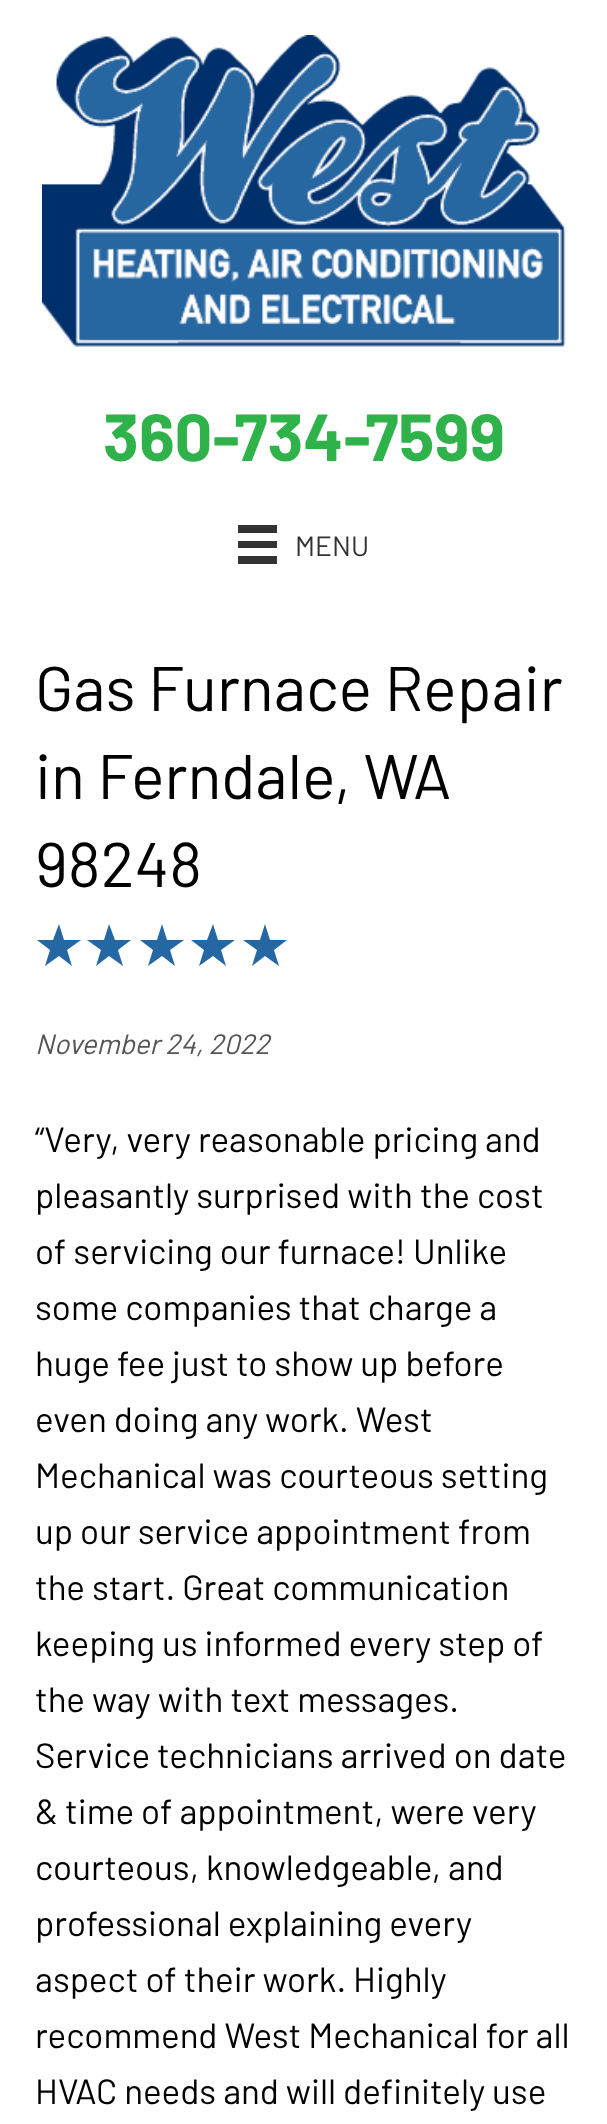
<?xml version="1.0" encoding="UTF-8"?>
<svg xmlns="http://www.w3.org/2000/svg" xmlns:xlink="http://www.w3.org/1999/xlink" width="607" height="2124">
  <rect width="100%" height="100%" fill="#ffffff" />
  <image x="42" y="35" width="524" height="312" xlink:href="image1.png" />
  <rect x="238" y="525" width="39" height="8" fill="#333333" />
  <rect x="238" y="541" width="39" height="7" fill="#333333" />
  <rect x="238" y="556" width="39" height="8" fill="#333333" />
  <path d="M 59 924 l 5 16 l -5 -16 l 5 16 h 17 l -14 10 l 5 16 l -13 -10 l -14 10 l 5 -16 l -13 -10 h 16 z" fill="#2567a2" />
  <path d="M 109 924 l 6 16 l -6 -16 l 6 16 h 16 l -13 10 l 5 16 l -14 -10 l -13 10 l 5 -16 l -14 -10 h 17 z" fill="#2567a2" />
  <path d="M 162 924 l 5 16 l -5 -16 l 5 16 h 17 l -14 10 l 5 16 l -13 -10 l -14 10 l 5 -16 l -13 -10 h 17 z" fill="#2567a2" />
  <path d="M 213 924 l 5 16 l -5 -16 l 5 16 h 17 l -14 10 l 5 16 l -13 -10 l -14 10 l 5 -16 l -13 -10 h 16 z" fill="#2567a2" />
  <path d="M 265 924 l 5 16 l -5 -16 l 5 16 h 17 l -13 10 l 5 16 l -14 -10 l -13 10 l 5 -16 l -14 -10 h 17 z" fill="#2567a2" />
  <text x="103" y="461" style="font-family: Barlow; font-size: 66.5px; font-weight: bold; fill: #30b24b">360-734-7599</text>
  <text x="295" y="556" style="font-family: Barlow; font-size: 28px; fill: #333333">MENU</text>
  <text x="35" y="711" style="font-family: Barlow; font-size: 63px; fill: #000000">Gas Furnace Repair</text>
  <text x="35" y="799" style="font-family: Barlow; font-size: 63px; fill: #000000">in Ferndale, WA</text>
  <text x="35" y="887" style="font-family: Barlow; font-size: 63px; fill: #000000">98248</text>
  <text x="35" y="1054" style="font-family: Barlow; font-size: 28px; font-style: italic; fill: #555555">November 24, 2022</text>
  <text x="35" y="1152" style="font-family: Barlow; font-size: 35px; fill: #000000">“Very, very reasonable pricing and</text>
  <text x="35" y="1208" style="font-family: Barlow; font-size: 35px; fill: #000000">pleasantly surprised with the cost</text>
  <text x="35" y="1264" style="font-family: Barlow; font-size: 35px; fill: #000000">of servicing our furnace! Unlike</text>
  <text x="35" y="1320" style="font-family: Barlow; font-size: 35px; fill: #000000">some companies that charge a</text>
  <text x="35" y="1376" style="font-family: Barlow; font-size: 35px; fill: #000000">huge fee just to show up before</text>
  <text x="35" y="1432" style="font-family: Barlow; font-size: 35px; fill: #000000">even doing any work. West</text>
  <text x="35" y="1488" style="font-family: Barlow; font-size: 35px; fill: #000000">Mechanical was courteous setting</text>
  <text x="35" y="1544" style="font-family: Barlow; font-size: 35px; fill: #000000">up our service appointment from</text>
  <text x="35" y="1600" style="font-family: Barlow; font-size: 35px; fill: #000000">the start. Great communication</text>
  <text x="35" y="1656" style="font-family: Barlow; font-size: 35px; fill: #000000">keeping us informed every step of</text>
  <text x="35" y="1712" style="font-family: Barlow; font-size: 35px; fill: #000000">the way with text messages.</text>
  <text x="35" y="1768" style="font-family: Barlow; font-size: 35px; fill: #000000">Service technicians arrived on date</text>
  <text x="35" y="1824" style="font-family: Barlow; font-size: 35px; fill: #000000">&amp; time of appointment, were very</text>
  <text x="35" y="1880" style="font-family: Barlow; font-size: 35px; fill: #000000">courteous, knowledgeable, and</text>
  <text x="35" y="1936" style="font-family: Barlow; font-size: 35px; fill: #000000">professional explaining every</text>
  <text x="35" y="1992" style="font-family: Barlow; font-size: 35px; fill: #000000">aspect of their work. Highly</text>
  <text x="35" y="2048" style="font-family: Barlow; font-size: 35px; fill: #000000">recommend West Mechanical for all</text>
  <text x="35" y="2104" style="font-family: Barlow; font-size: 35px; fill: #000000">HVAC needs and will definitely use</text>
</svg>
